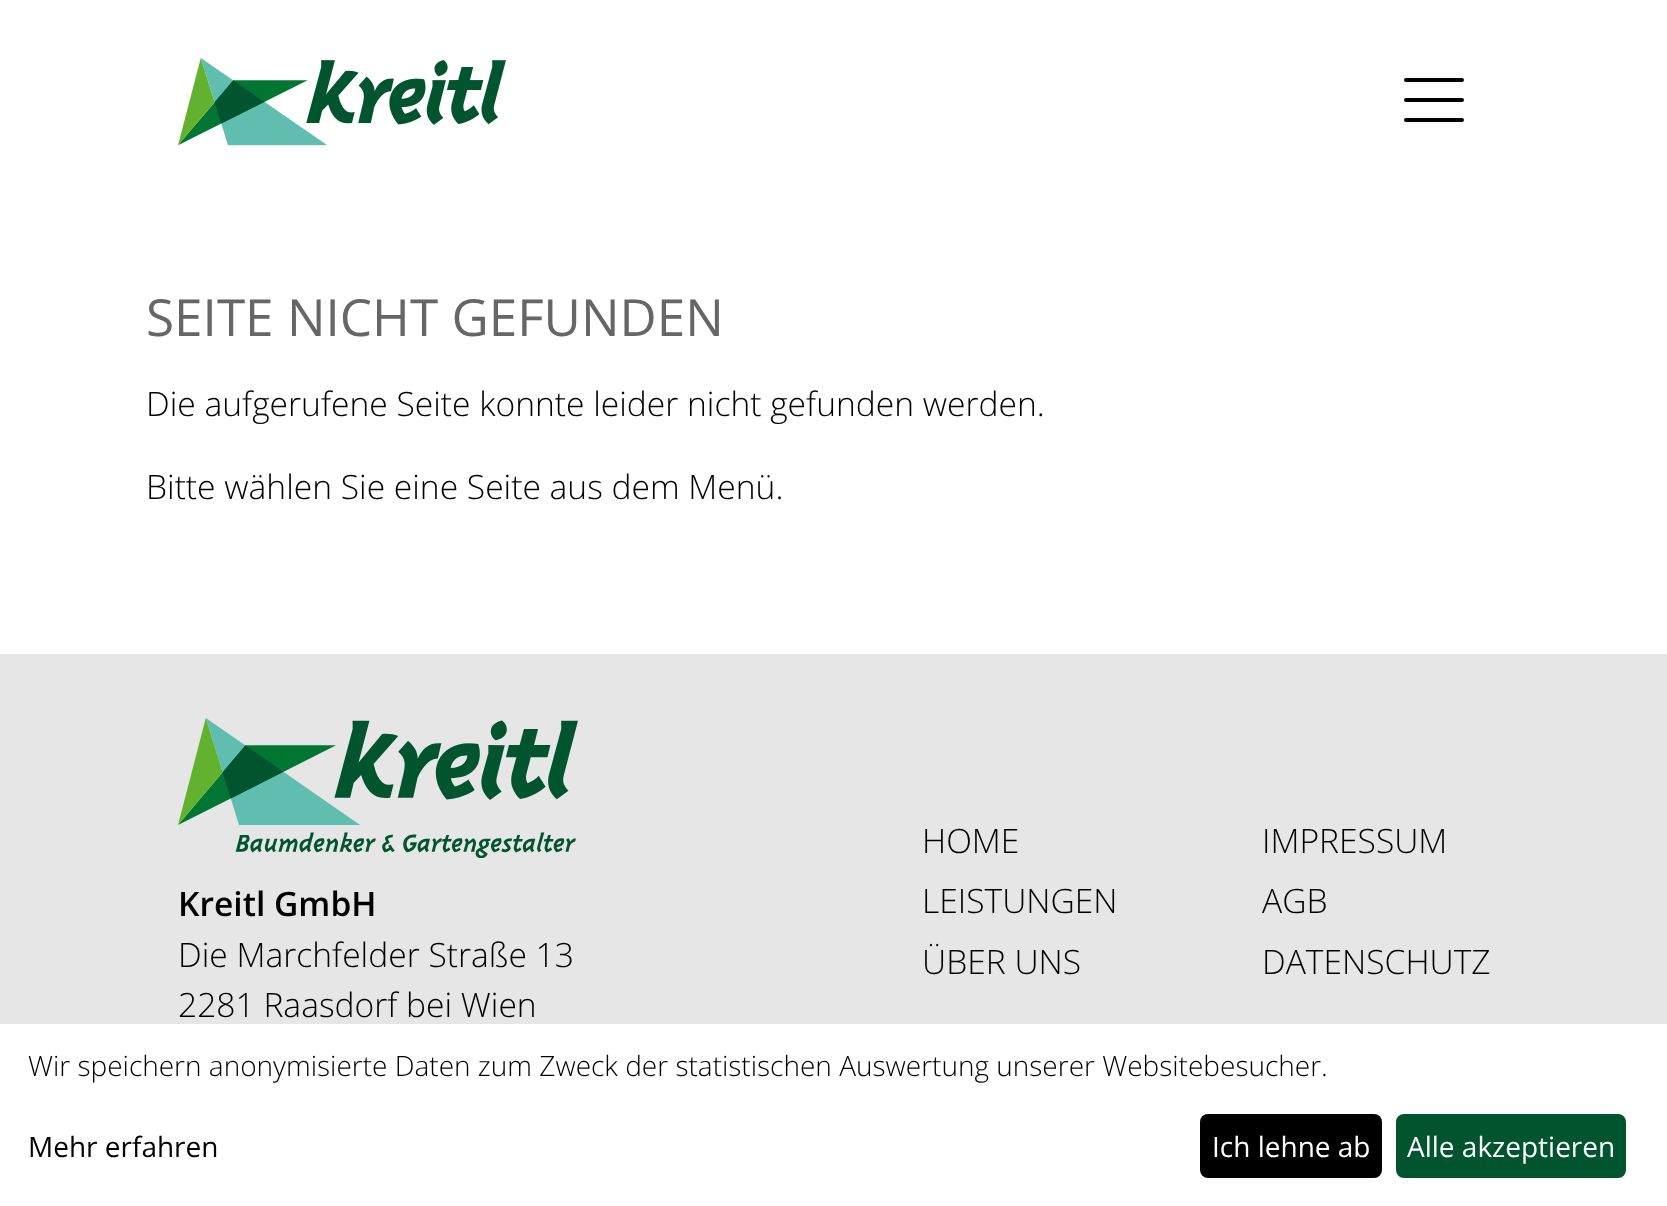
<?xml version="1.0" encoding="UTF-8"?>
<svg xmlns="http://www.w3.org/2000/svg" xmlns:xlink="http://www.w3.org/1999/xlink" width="1667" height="1206">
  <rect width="100%" height="100%" fill="#ffffff" />
  <image x="178" y="58" width="328" height="88" xlink:href="image1.png" />
  <rect x="1404" y="78" width="60" height="4" rx="2" fill="#000000" />
  <rect x="1404" y="98" width="60" height="4" rx="2" fill="#000000" />
  <rect x="1404" y="118" width="60" height="4" rx="2" fill="#000000" />
  <rect y="654" width="1667" height="370" fill="#e6e6e6" />
  <image x="178" y="718" width="400" height="140" xlink:href="image2.png" />
  <rect x="1200" y="1114" width="182" height="64" rx="8" fill="#000000" />
  <rect x="1396" y="1114" width="230" height="64" rx="8" fill="#00552f" />
  <text x="146" y="336" style="font-family: Open Sans; font-size: 51.25px; fill: #666666">SEITE NICHT GEFUNDEN</text>
  <text x="146" y="416" style="font-family: Open Sans; font-size: 33.6px; font-weight: 300; fill: #000000">Die aufgerufene Seite konnte leider nicht gefunden werden.</text>
  <text x="146" y="499" style="font-family: Open Sans; font-size: 33.6px; font-weight: 300; fill: #000000">Bitte wählen Sie eine Seite aus dem Menü.</text>
  <text x="178" y="916" style="font-family: Open Sans; font-size: 33.6px; font-weight: 600; fill: #000000">Kreitl GmbH</text>
  <text x="178" y="967" style="font-family: Open Sans; font-size: 33.6px; font-weight: 300; fill: #000000">Die Marchfelder Straße 13</text>
  <text x="178" y="1017" style="font-family: Open Sans; font-size: 33.6px; font-weight: 300; fill: #000000">2281 Raasdorf bei Wien</text>
  <text x="922" y="853" style="font-family: Open Sans; font-size: 33.6px; font-weight: 300; fill: #000000">HOME</text>
  <text x="922" y="913" style="font-family: Open Sans; font-size: 33.6px; font-weight: 300; fill: #000000">LEISTUNGEN</text>
  <text x="922" y="974" style="font-family: Open Sans; font-size: 33.6px; font-weight: 300; fill: #000000">ÜBER UNS</text>
  <text x="1262" y="853" style="font-family: Open Sans; font-size: 33.6px; font-weight: 300; fill: #000000">IMPRESSUM</text>
  <text x="1262" y="913" style="font-family: Open Sans; font-size: 33.6px; font-weight: 300; fill: #000000">AGB</text>
  <text x="1262" y="974" style="font-family: Open Sans; font-size: 33.6px; font-weight: 300; fill: #000000">DATENSCHUTZ</text>
  <text x="28" y="1076" style="font-family: Open Sans; font-size: 28px; font-weight: 300; fill: #000000">Wir speichern anonymisierte Daten zum Zweck der statistischen Auswertung unserer Websitebesucher.</text>
  <text x="28" y="1157" style="font-family: Open Sans; font-size: 28px; fill: #000000">Mehr erfahren</text>
  <text x="1212" y="1157" style="font-family: Open Sans; font-size: 28px; fill: #ffffff">Ich lehne ab</text>
  <text x="1407" y="1157" style="font-family: Open Sans; font-size: 28px; fill: #ffffff">Alle akzeptieren</text>
</svg>
